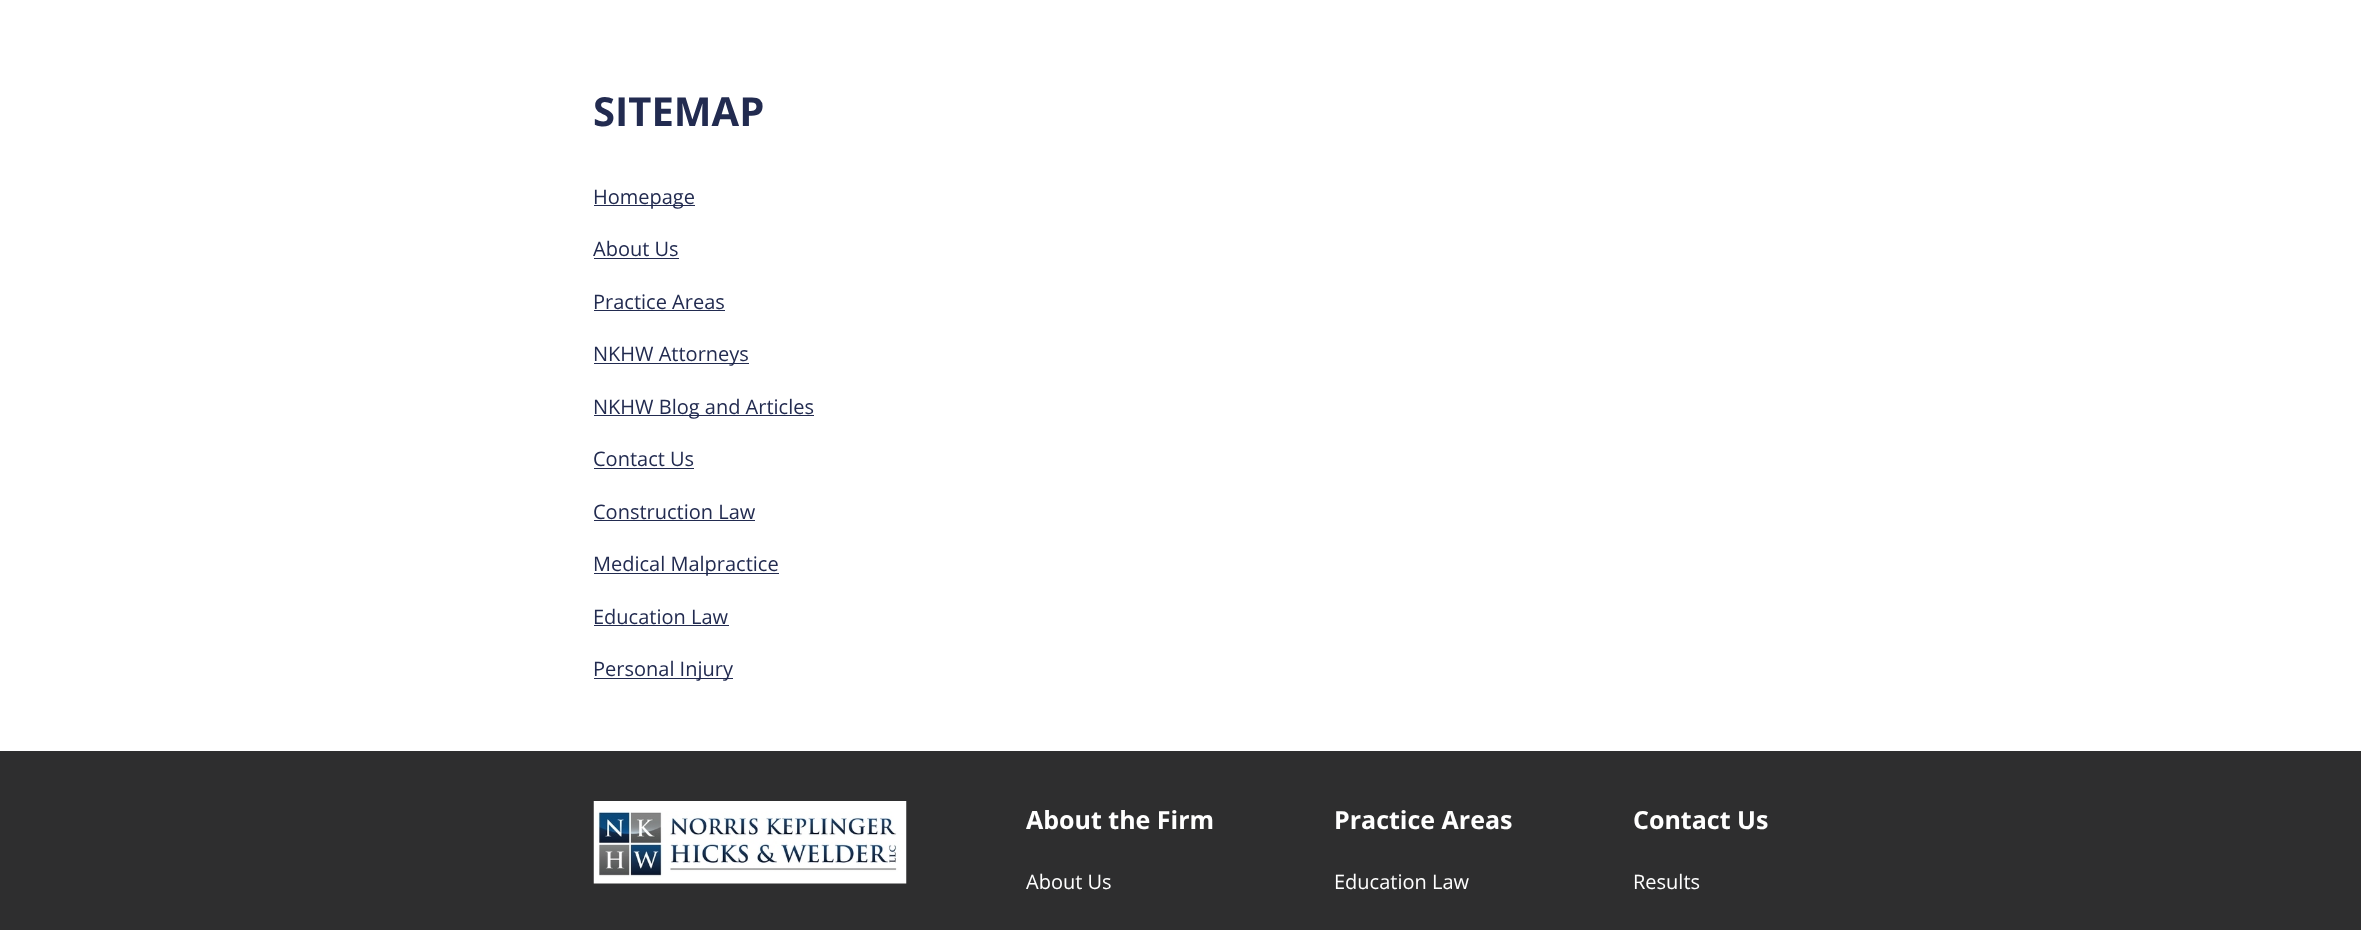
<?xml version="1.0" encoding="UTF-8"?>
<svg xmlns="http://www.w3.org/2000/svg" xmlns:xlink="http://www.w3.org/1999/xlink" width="2361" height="930">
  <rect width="100%" height="100%" fill="#ffffff" />
  <rect x="594" y="205" width="101" height="1" fill="#222b50" />
  <rect x="594" y="258" width="85" height="1" fill="#222b50" />
  <rect x="594" y="310" width="131" height="1" fill="#222b50" />
  <rect x="594" y="363" width="155" height="1" fill="#222b50" />
  <rect x="594" y="415" width="220" height="1" fill="#222b50" />
  <rect x="594" y="468" width="100" height="1" fill="#222b50" />
  <rect x="594" y="520" width="161" height="1" fill="#222b50" />
  <rect x="594" y="573" width="185" height="1" fill="#222b50" />
  <rect x="594" y="625" width="135" height="1" fill="#222b50" />
  <rect x="594" y="678" width="139" height="1" fill="#222b50" />
  <rect y="751" width="2361" height="179" fill="#2e2e2f" />
  <image x="593" y="801" width="314" height="83" xlink:href="image1.png" />
  <text x="593" y="126" style="font-family: Open Sans; font-size: 40px; font-weight: bold; fill: #222b50">SITEMAP</text>
  <text x="593" y="204" style="font-family: Open Sans; font-size: 20px; fill: #222b50">Homepage</text>
  <text x="593" y="256" style="font-family: Open Sans; font-size: 20px; fill: #222b50">About Us</text>
  <text x="593" y="309" style="font-family: Open Sans; font-size: 20px; fill: #222b50">Practice Areas</text>
  <text x="593" y="361" style="font-family: Open Sans; font-size: 20px; fill: #222b50">NKHW Attorneys</text>
  <text x="593" y="414" style="font-family: Open Sans; font-size: 20px; fill: #222b50">NKHW Blog and Articles</text>
  <text x="593" y="466" style="font-family: Open Sans; font-size: 20px; fill: #222b50">Contact Us</text>
  <text x="593" y="519" style="font-family: Open Sans; font-size: 20px; fill: #222b50">Construction Law</text>
  <text x="593" y="571" style="font-family: Open Sans; font-size: 20px; fill: #222b50">Medical Malpractice</text>
  <text x="593" y="624" style="font-family: Open Sans; font-size: 20px; fill: #222b50">Education Law</text>
  <text x="593" y="676" style="font-family: Open Sans; font-size: 20px; fill: #222b50">Personal Injury</text>
  <text x="1026" y="829" style="font-family: Open Sans; font-size: 25px; font-weight: bold; fill: #ffffff">About the Firm</text>
  <text x="1026" y="889" style="font-family: Open Sans; font-size: 20px; fill: #ffffff">About Us</text>
  <text x="1334" y="829" style="font-family: Open Sans; font-size: 25px; font-weight: bold; fill: #ffffff">Practice Areas</text>
  <text x="1334" y="889" style="font-family: Open Sans; font-size: 20px; fill: #ffffff">Education Law</text>
  <text x="1633" y="829" style="font-family: Open Sans; font-size: 25px; font-weight: bold; fill: #ffffff">Contact Us</text>
  <text x="1633" y="889" style="font-family: Open Sans; font-size: 20px; fill: #ffffff">Results</text>
</svg>
